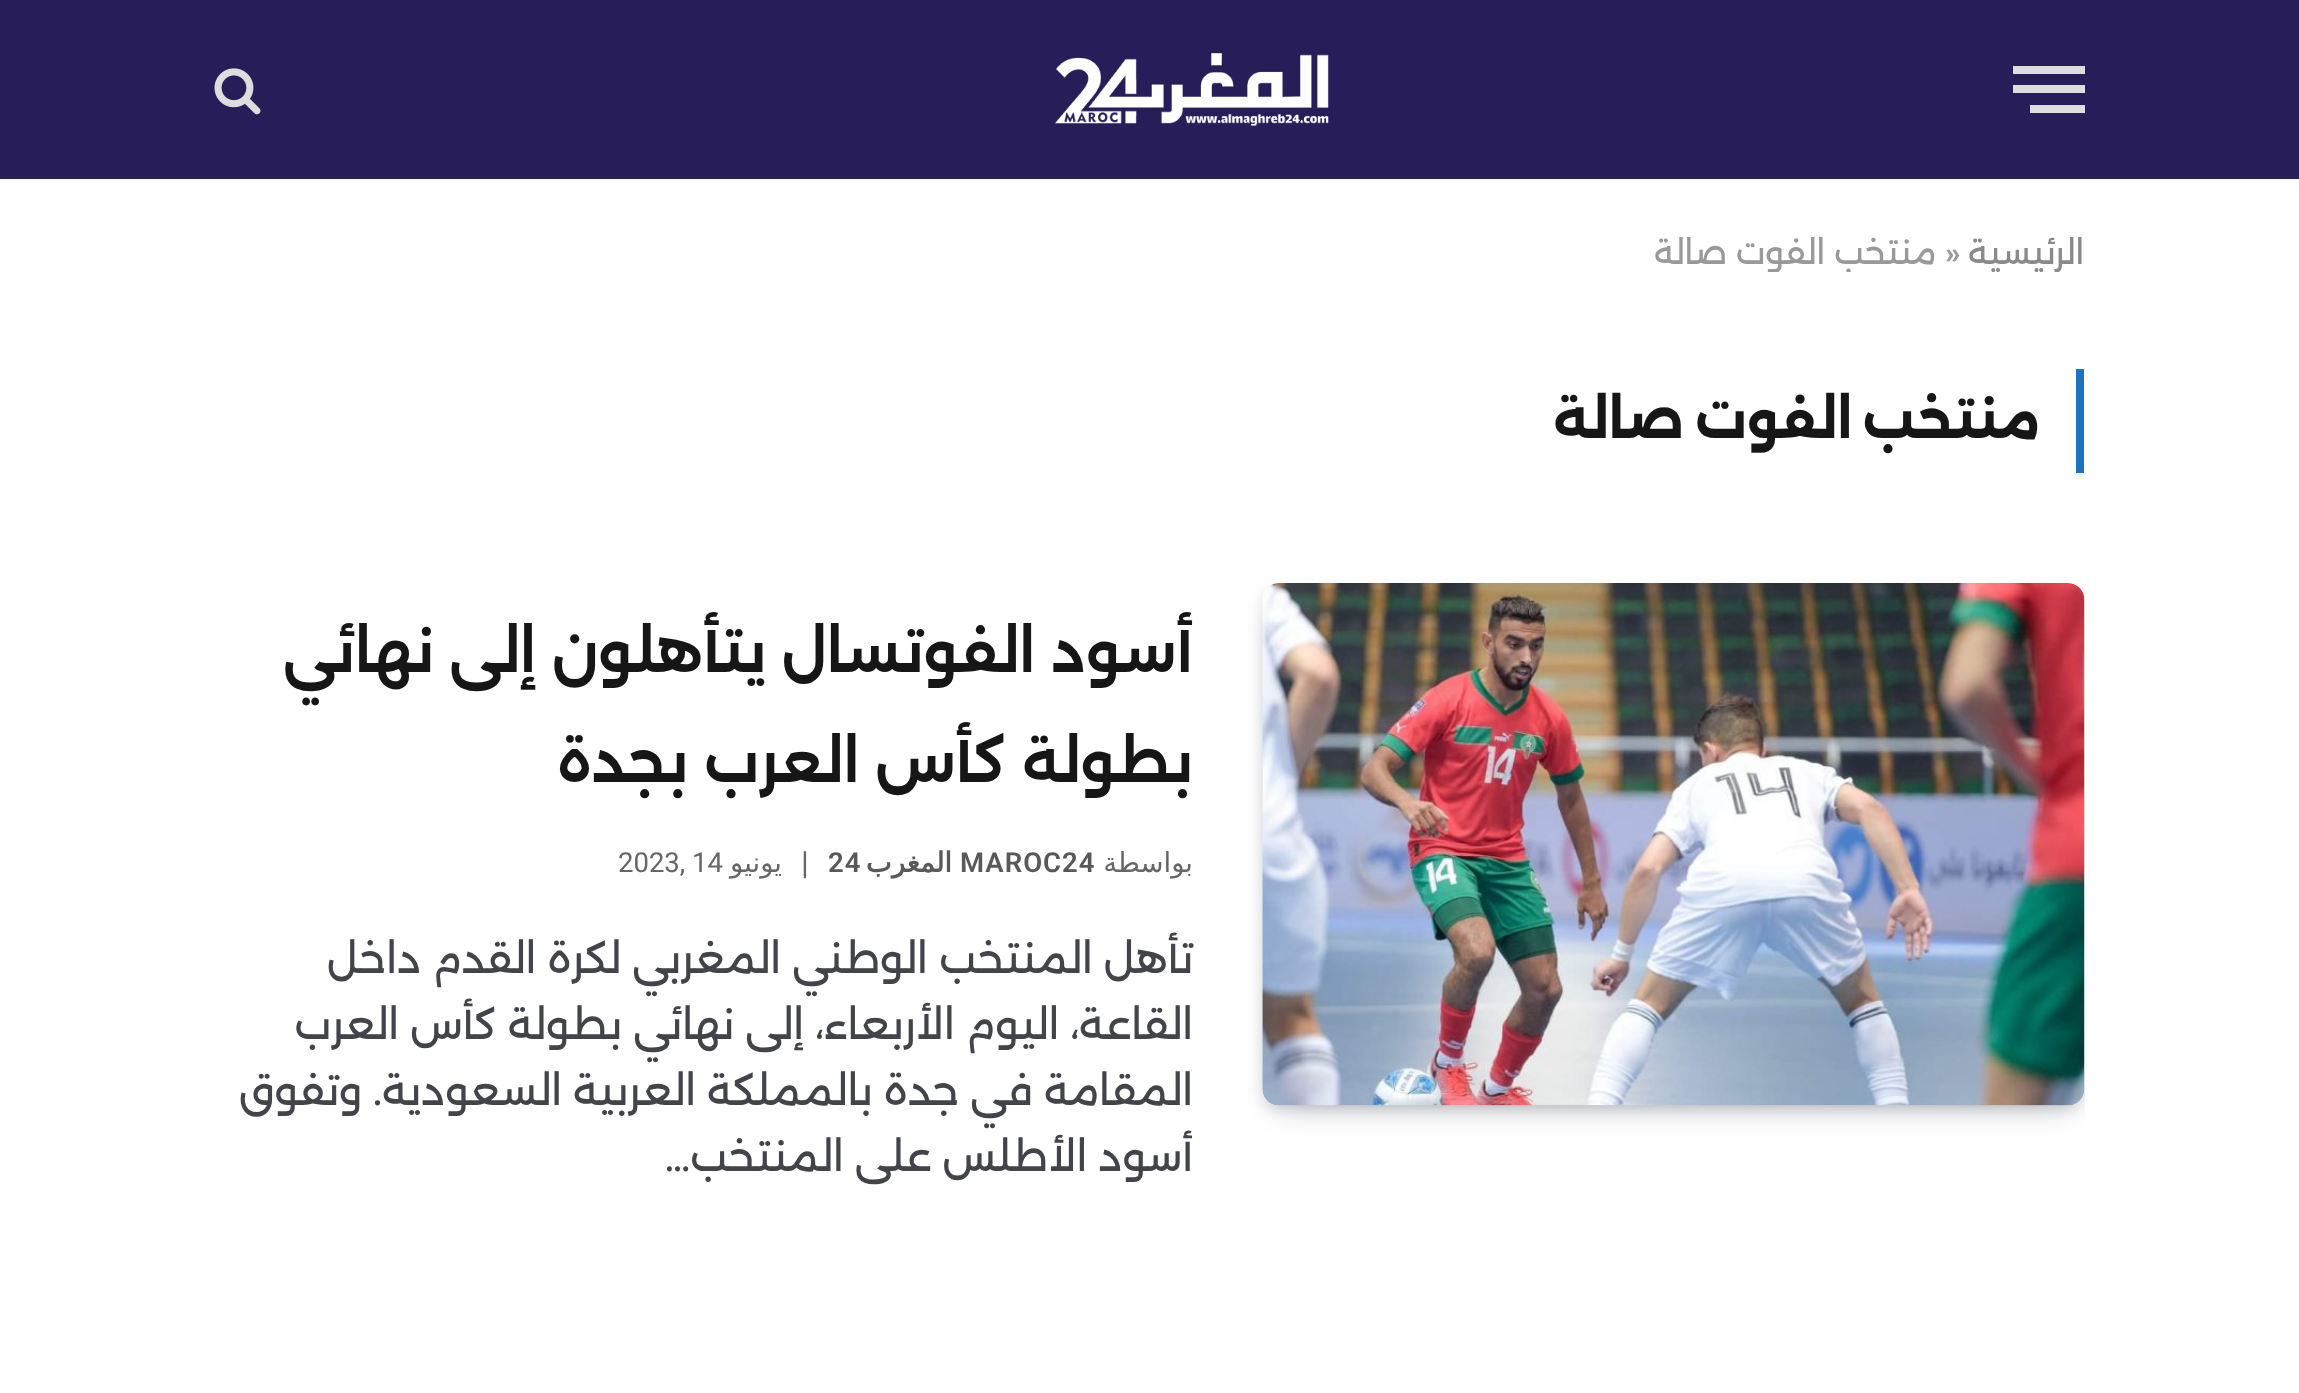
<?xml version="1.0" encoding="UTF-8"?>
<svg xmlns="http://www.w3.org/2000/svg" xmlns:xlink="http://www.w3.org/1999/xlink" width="2299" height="1393">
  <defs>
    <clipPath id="clip1"><rect x="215" y="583" width="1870" height="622" /></clipPath>
    <clipPath id="clip2"><rect x="118" y="234" width="2063" height="38" /></clipPath>
  </defs>
  <rect width="100%" height="100%" fill="#ffffff" />
  <rect width="2299" height="179" fill="#261d59" />
  <rect x="2030" y="105" width="55" height="8" fill="#dddddd" />
  <rect x="2013" y="66" width="72" height="8" fill="#dddddd" />
  <rect x="2013" y="85" width="72" height="8" fill="#dddddd" />
  <image x="1055" y="53" width="274" height="73" xlink:href="image1.png" />
  <image x="214" y="68" width="47" height="47" xlink:href="image2.png" />
  <rect x="2076" y="369" width="8" height="104" fill="#1e73be" />
  <g clip-path="url(#clip1)">
    <rect x="1279" y="616" width="789" height="490" fill="#070a19" fill-opacity="0.2" filter="blur(16.5px)" />
    <rect x="1265" y="591" width="817" height="517" rx="14" fill="#070a19" fill-opacity="0.2" filter="blur(8px)" />
  </g>
  <image x="1262" y="583" width="823" height="523" xlink:href="image3.png" />
  <g clip-path="url(#clip2)">
    <text x="2084" y="264" style="font-family: Alexandria; font-size: 33px; direction: rtl; fill: #8a8a8a">الرئيسية</text>
  </g>
  <text x="1945" y="264" style="font-family: Alexandria; font-size: 33px; fill: #999999">»</text>
  <g clip-path="url(#clip2)">
    <text x="1936" y="264" style="font-family: Alexandria; font-size: 33px; direction: rtl; fill: #999999">منتخب الفوت صالة</text>
  </g>
  <text x="2040" y="438" word-spacing="-3" style="font-family: Alexandria; font-size: 52.25px; font-weight: bold; letter-spacing: 0.5px; direction: rtl; fill: #161616">منتخب الفوت صالة</text>
  <text x="1193" y="672" style="font-family: Alexandria; font-size: 57.75px; font-weight: 600; direction: rtl; fill: #161616">أسود الفوتسال يتأهلون إلى نهائي</text>
  <text x="1193" y="782" style="font-family: Alexandria; font-size: 57.75px; font-weight: 600; direction: rtl; fill: #161616">بطولة كأس العرب بجدة</text>
  <text x="1193" y="872" style="font-family: DejaVu Sans; font-size: 27.5px; direction: rtl; fill: #666666">بواسطة</text>
  <text x="960" y="872" style="font-family: Roboto; font-size: 27.5px; font-weight: 600; letter-spacing: 1px; fill: #595959">MAROC24</text>
  <text x="952" y="872" style="font-family: DejaVu Sans; font-size: 27.5px; font-weight: bold; letter-spacing: 1px; direction: rtl; fill: #595959">المغرب</text>
  <text x="828" y="872" style="font-family: Roboto; font-size: 27.5px; font-weight: 600; letter-spacing: 1px; fill: #595959">24</text>
  <text x="801" y="874" style="font-family: Roboto; font-size: 32px; fill: #666666">|</text>
  <text x="782" y="872" style="font-family: DejaVu Sans; font-size: 27.5px; direction: rtl; fill: #666666">يونيو</text>
  <text x="618" y="872" style="font-family: Roboto; font-size: 27.5px; fill: #666666">2023, 14</text>
  <text x="1193" y="973" style="font-family: Alexandria; font-size: 41.25px; direction: rtl; fill: #424449">تأهل المنتخب الوطني المغربي لكرة القدم داخل</text>
  <text x="1193" y="1039" style="font-family: Alexandria; font-size: 41.25px; direction: rtl; fill: #424449">القاعة، اليوم الأربعاء، إلى نهائي بطولة كأس العرب</text>
  <text x="1193" y="1105" style="font-family: Alexandria; font-size: 41.25px; direction: rtl; fill: #424449">المقامة في جدة بالمملكة العربية السعودية. وتفوق</text>
  <text x="1193" y="1171" style="font-family: Alexandria; font-size: 41.25px; direction: rtl; fill: #424449">أسود الأطلس على المنتخب…</text>
</svg>
